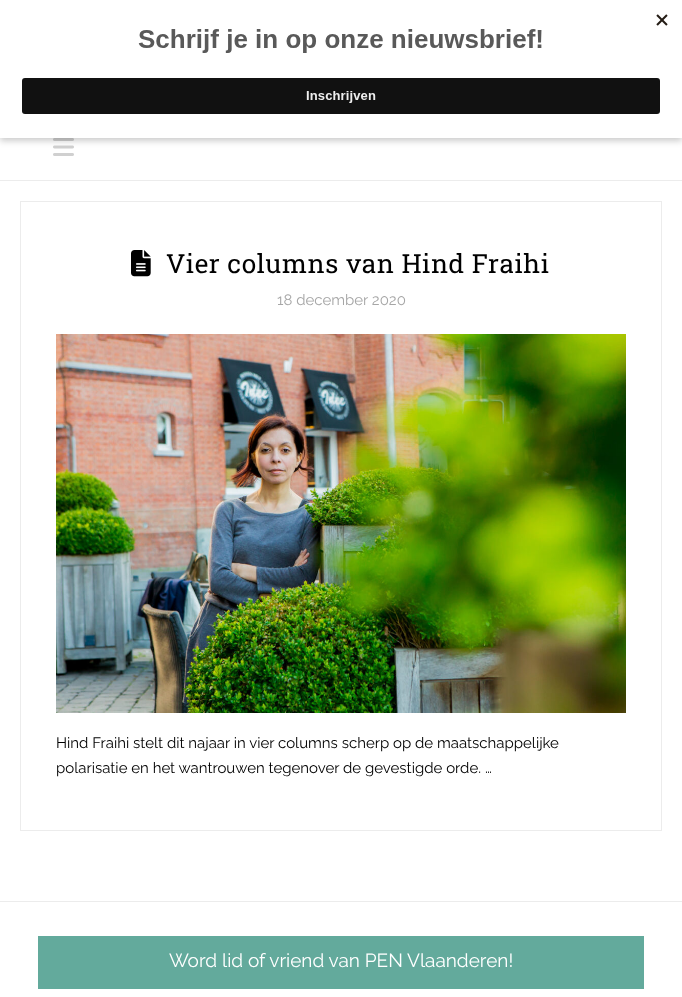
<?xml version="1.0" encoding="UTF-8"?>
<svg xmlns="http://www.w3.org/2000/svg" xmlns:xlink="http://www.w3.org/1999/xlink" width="682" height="997">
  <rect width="100%" height="100%" fill="#ffffff" />
  <image x="53" y="138" width="21" height="18" xlink:href="image2.png" />
  <rect y="3" width="682" height="138" fill="#000000" fill-opacity="0.2" filter="blur(3px)" />
  <rect width="682" height="138" fill="#ffffff" />
  <image x="22" y="14" width="646" height="100" xlink:href="image1.png" />
  <rect y="180" width="682" height="1" fill="#ececec" />
  <rect x="20.5" y="201.5" width="641" height="629" fill="none" stroke="#ececec" />
  <image x="131" y="250" width="20" height="27" xlink:href="image3.png" />
  <image x="56" y="334" width="570" height="379" xlink:href="image4.png" />
  <rect y="901" width="682" height="1" fill="#ececec" />
  <rect x="38" y="936" width="606" height="53" fill="#63aa9c" />
  <text x="166" y="273" style="font-family: Roboto Slab; font-size: 26.25px; letter-spacing: 0.5px; fill: #000000">Vier columns van Hind Fraihi</text>
  <text x="277" y="305" style="font-family: Raleway; font-size: 15px; fill: #a6a6a6">18 december 2020</text>
  <text x="56" y="748" style="font-family: Raleway; font-size: 15px; fill: #000000">Hind Fraihi stelt dit najaar in vier columns scherp op de maatschappelijke</text>
  <text x="56" y="773" style="font-family: Raleway; font-size: 15px; fill: #000000">polarisatie en het wantrouwen tegenover de gevestigde orde. …</text>
  <text x="169" y="967" style="font-family: Raleway; font-size: 19px; fill: #ffffff">Word lid of vriend van PEN Vlaanderen!</text>
</svg>
